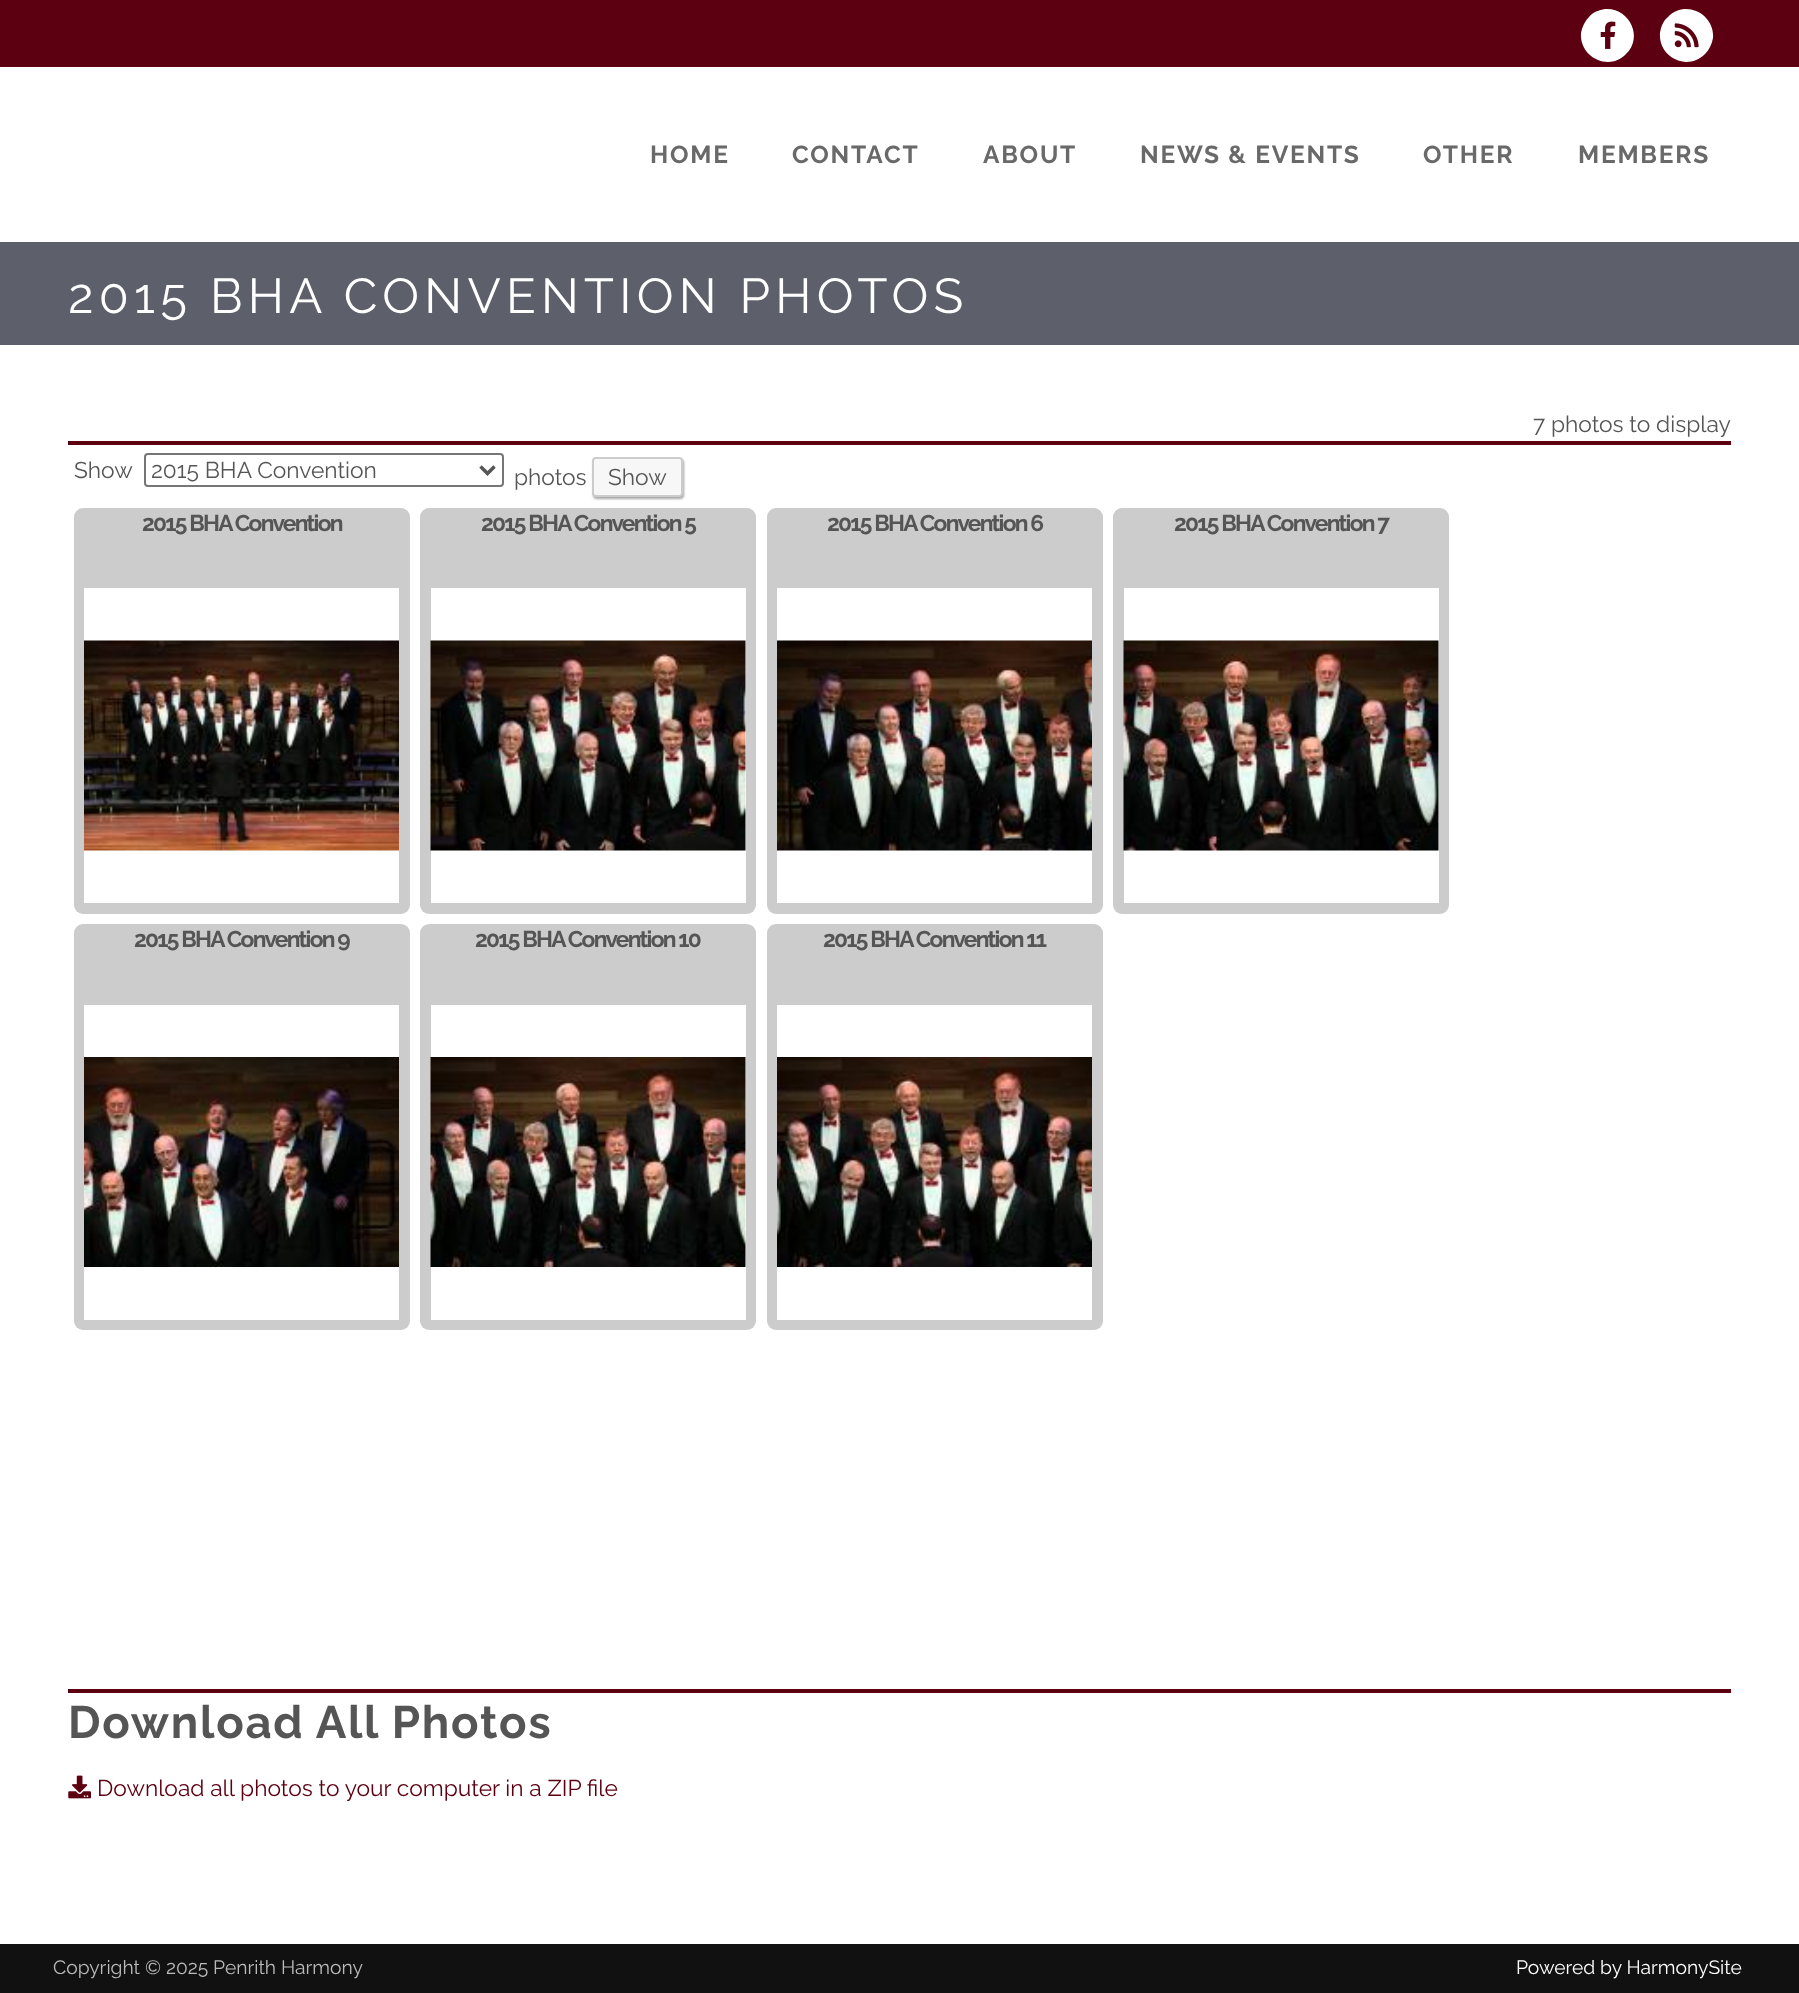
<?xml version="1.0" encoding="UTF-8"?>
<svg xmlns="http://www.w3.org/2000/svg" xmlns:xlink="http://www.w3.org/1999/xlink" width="1799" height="1993">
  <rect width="100%" height="100%" fill="#ffffff" />
  <rect width="1799" height="67" fill="#5c0011" />
  <path d="M 1589 17 c 4 -5 10 -7 16 -8 c 24 -2 39 28 21 45 c -17 18 -47 3 -45 -21 c 1 -6 4 -12 8 -16 z" fill="#ffffff" />
  <image x="1600" y="21" width="16" height="28" xlink:href="image1.png" />
  <path d="M 1668 17 c 17 -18 47 -3 45 21 c -1 6 -4 12 -8 16 c -18 18 -47 3 -45 -21 c 1 -6 3 -12 8 -16 z" fill="#ffffff" />
  <image x="1674" y="23" width="25" height="25" xlink:href="image2.png" />
  <rect y="242" width="1799" height="103" fill="#5d606b" />
  <rect x="68" y="441" width="1663" height="4" fill="#5c0011" />
  <rect x="145" y="454" width="358" height="32" rx="3" fill="none" stroke="#767676" stroke-width="2" />
  <path d="M 480.5 466.5 l 7 7 l 7 -7" fill="none" stroke="#555555" stroke-width="3.5" />
  <rect x="593" y="459" width="91" height="40" rx="4" fill="#000000" fill-opacity="0.35" filter="blur(1px)" />
  <rect x="593" y="458" width="89" height="38" rx="3" fill="#f7f7f7" stroke="#cccccc" stroke-width="2" />
  <rect x="74" y="508" width="336" height="406" rx="9" fill="#cccccc" />
  <rect x="84" y="588" width="315" height="315" fill="#ffffff" />
  <image x="84" y="640" width="315" height="211" xlink:href="image3.png" />
  <rect x="420" y="508" width="336" height="406" rx="9" fill="#cccccc" />
  <rect x="431" y="588" width="315" height="315" fill="#ffffff" />
  <image x="430" y="640" width="316" height="211" xlink:href="image4.png" />
  <rect x="767" y="508" width="336" height="406" rx="9" fill="#cccccc" />
  <rect x="777" y="588" width="315" height="315" fill="#ffffff" />
  <image x="777" y="640" width="315" height="211" xlink:href="image5.png" />
  <rect x="1113" y="508" width="336" height="406" rx="9" fill="#cccccc" />
  <rect x="1124" y="588" width="315" height="315" fill="#ffffff" />
  <image x="1123" y="640" width="316" height="211" xlink:href="image6.png" />
  <rect x="74" y="924" width="336" height="406" rx="9" fill="#cccccc" />
  <rect x="84" y="1005" width="315" height="315" fill="#ffffff" />
  <image x="84" y="1057" width="315" height="210" xlink:href="image7.png" />
  <rect x="420" y="924" width="336" height="406" rx="9" fill="#cccccc" />
  <rect x="431" y="1005" width="315" height="315" fill="#ffffff" />
  <image x="430" y="1057" width="316" height="210" xlink:href="image8.png" />
  <rect x="767" y="924" width="336" height="406" rx="9" fill="#cccccc" />
  <rect x="777" y="1005" width="315" height="315" fill="#ffffff" />
  <image x="777" y="1057" width="315" height="210" xlink:href="image9.png" />
  <rect x="68" y="1689" width="1663" height="4" fill="#5c0011" />
  <image x="68" y="1775" width="23" height="24" xlink:href="image10.png" />
  <rect y="1944" width="1799" height="49" fill="#111111" />
  <text x="650" y="163" style="font-family: Raleway; font-size: 24.5px; font-weight: bold; letter-spacing: 1.75px; fill: #696969">HOME</text>
  <text x="792" y="163" style="font-family: Raleway; font-size: 24.5px; font-weight: bold; letter-spacing: 1.75px; fill: #696969">CONTACT</text>
  <text x="983" y="163" style="font-family: Raleway; font-size: 24.5px; font-weight: bold; letter-spacing: 1.75px; fill: #696969">ABOUT</text>
  <text x="1140" y="163" style="font-family: Raleway; font-size: 24.5px; font-weight: bold; letter-spacing: 1.75px; fill: #696969">NEWS &amp; EVENTS</text>
  <text x="1423" y="163" style="font-family: Raleway; font-size: 24.5px; font-weight: bold; letter-spacing: 1.75px; fill: #696969">OTHER</text>
  <text x="1578" y="163" style="font-family: Raleway; font-size: 24.5px; font-weight: bold; letter-spacing: 1.75px; fill: #696969">MEMBERS</text>
  <text x="68" y="313" style="font-family: Raleway; font-size: 49px; letter-spacing: 5.25px; fill: #ffffff">2015 BHA CONVENTION PHOTOS</text>
  <text x="1533" y="432" style="font-family: Raleway; font-size: 22.75px; fill: #555555">7 photos to display</text>
  <text x="74" y="478" style="font-family: Raleway; font-size: 22.75px; fill: #555555">Show</text>
  <text x="151" y="478" style="font-family: Raleway; font-size: 22.75px; fill: #555555">2015 BHA Convention</text>
  <text x="514" y="485" style="font-family: Raleway; font-size: 22.75px; fill: #555555">photos</text>
  <text x="608" y="485" style="font-family: Raleway; font-size: 22.75px; fill: #555555">Show</text>
  <text x="142" y="531" style="font-family: Raleway; font-size: 22.75px; font-weight: bold; letter-spacing: -1.75px; fill: #555555">2015 BHA Convention</text>
  <text x="481" y="531" style="font-family: Raleway; font-size: 22.75px; font-weight: bold; letter-spacing: -1.75px; fill: #555555">2015 BHA Convention 5</text>
  <text x="827" y="531" style="font-family: Raleway; font-size: 22.75px; font-weight: bold; letter-spacing: -1.75px; fill: #555555">2015 BHA Convention 6</text>
  <text x="1174" y="531" style="font-family: Raleway; font-size: 22.75px; font-weight: bold; letter-spacing: -1.75px; fill: #555555">2015 BHA Convention 7</text>
  <text x="134" y="947" style="font-family: Raleway; font-size: 22.75px; font-weight: bold; letter-spacing: -1.75px; fill: #555555">2015 BHA Convention 9</text>
  <text x="475" y="947" style="font-family: Raleway; font-size: 22.75px; font-weight: bold; letter-spacing: -1.75px; fill: #555555">2015 BHA Convention 10</text>
  <text x="823" y="947" style="font-family: Raleway; font-size: 22.75px; font-weight: bold; letter-spacing: -1.75px; fill: #555555">2015 BHA Convention 11</text>
  <text x="68" y="1738" style="font-family: Raleway; font-size: 45.5px; font-weight: bold; letter-spacing: 1.75px; fill: #555555">Download All Photos</text>
  <text x="97" y="1796" style="font-family: Raleway; font-size: 22.75px; fill: #5c0011">Download all photos to your computer in a ZIP file</text>
  <text x="53" y="1974" style="font-family: Raleway; font-size: 19.25px; fill: #bbbbbb">Copyright © 2025 Penrith Harmony</text>
  <text x="1516" y="1974" style="font-family: Raleway; font-size: 19.25px; fill: #ffffff">Powered by HarmonySite</text>
</svg>
